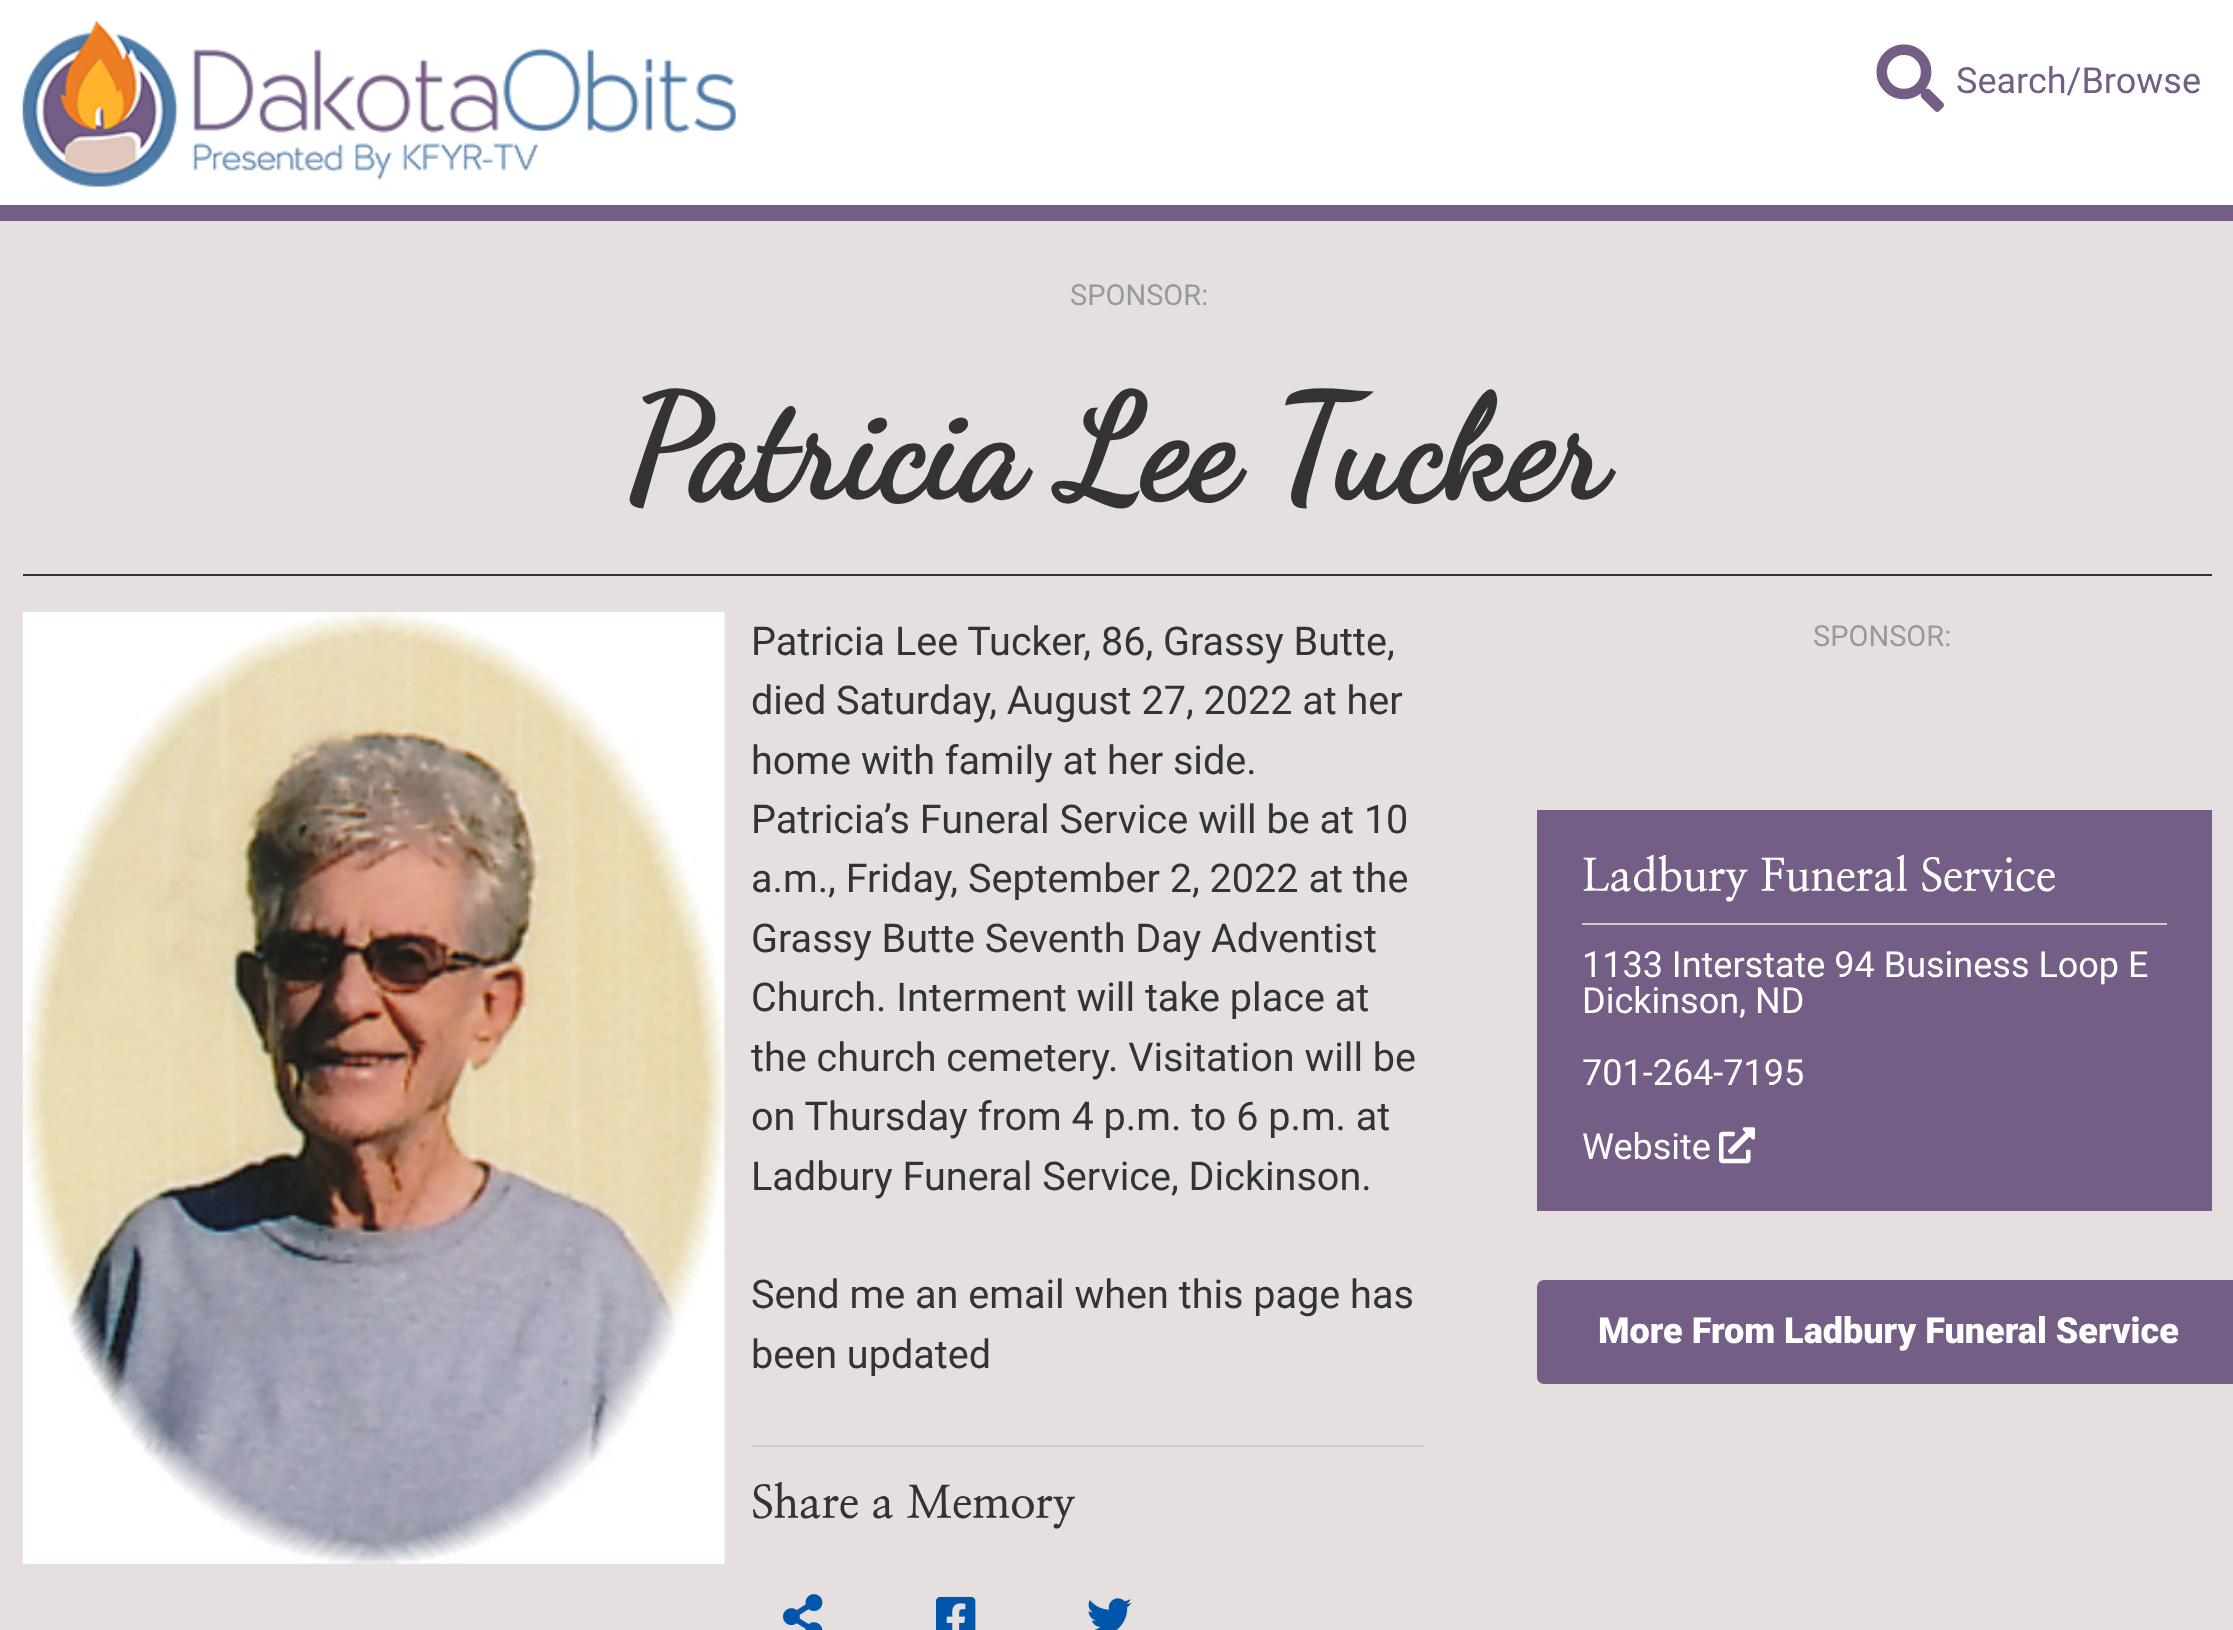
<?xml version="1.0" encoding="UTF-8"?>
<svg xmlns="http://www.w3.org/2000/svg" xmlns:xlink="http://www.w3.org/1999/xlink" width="2233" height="1630">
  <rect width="100%" height="100%" fill="#e5e0df" />
  <rect width="2233" height="205" fill="#ffffff" />
  <rect y="205" width="2233" height="16" fill="#755e85" />
  <image x="22" y="21" width="714" height="166" xlink:href="image1.png" />
  <image x="1876" y="44" width="68" height="68" xlink:href="image2.png" />
  <rect x="23" y="574" width="2189" height="2" fill="#333333" />
  <image x="22" y="612" width="703" height="952" xlink:href="image3.png" />
  <rect x="752" y="1445" width="672" height="2" fill="#cccccc" />
  <image x="783" y="1594" width="40" height="36" xlink:href="image4.png" />
  <image x="936" y="1596" width="40" height="34" xlink:href="image5.png" />
  <image x="1088" y="1598" width="44" height="32" xlink:href="image6.png" />
  <rect x="1537" y="810" width="675" height="401" fill="#755e85" />
  <rect x="1582" y="923" width="585" height="2" fill="#cccccc" />
  <image x="1719" y="1127" width="36" height="37" xlink:href="image7.png" />
  <rect x="1537" y="1280" width="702" height="104" rx="7" fill="#755e85" />
  <text x="1956" y="93" style="font-family: Roboto; font-size: 36px; fill: #755e85">Search/Browse</text>
  <text x="1070" y="305" style="font-family: Roboto; font-size: 29px; fill: #999999">SPONSOR:</text>
  <text x="627" y="496" style="font-family: Dancing Script; font-size: 144px; font-weight: bold; fill: #333333">Patricia Lee Tucker</text>
  <text x="751" y="655" style="font-family: Roboto; font-size: 39.6px; fill: #333333">Patricia Lee Tucker, 86, Grassy Butte,</text>
  <text x="751" y="714" style="font-family: Roboto; font-size: 39.6px; fill: #333333">died Saturday, August 27, 2022 at her</text>
  <text x="751" y="774" style="font-family: Roboto; font-size: 39.6px; fill: #333333">home with family at her side.</text>
  <text x="751" y="833" style="font-family: Roboto; font-size: 39.6px; fill: #333333">Patricia’s Funeral Service will be at 10</text>
  <text x="751" y="892" style="font-family: Roboto; font-size: 39.6px; fill: #333333">a.m., Friday, September 2, 2022 at the</text>
  <text x="751" y="952" style="font-family: Roboto; font-size: 39.6px; fill: #333333">Grassy Butte Seventh Day Adventist</text>
  <text x="751" y="1011" style="font-family: Roboto; font-size: 39.6px; fill: #333333">Church. Interment will take place at</text>
  <text x="751" y="1071" style="font-family: Roboto; font-size: 39.6px; fill: #333333">the church cemetery. Visitation will be</text>
  <text x="751" y="1130" style="font-family: Roboto; font-size: 39.6px; fill: #333333">on Thursday from 4 p.m. to 6 p.m. at</text>
  <text x="751" y="1190" style="font-family: Roboto; font-size: 39.6px; fill: #333333">Ladbury Funeral Service, Dickinson.</text>
  <text x="751" y="1308" style="font-family: Roboto; font-size: 39.6px; fill: #333333">Send me an email when this page has</text>
  <text x="751" y="1368" style="font-family: Roboto; font-size: 39.6px; fill: #333333">been updated</text>
  <text x="751" y="1518" style="font-family: NanumMyeongjo; font-size: 45px; font-weight: bold; fill: #333333">Share a Memory</text>
  <text x="1813" y="646" style="font-family: Roboto; font-size: 29px; fill: #999999">SPONSOR:</text>
  <text x="1582" y="891" style="font-family: NanumMyeongjo; font-size: 45px; font-weight: bold; fill: #ffffff">Ladbury Funeral Service</text>
  <text x="1582" y="977" style="font-family: Roboto; font-size: 36px; fill: #ffffff">1133 Interstate 94 Business Loop E</text>
  <text x="1582" y="1013" style="font-family: Roboto; font-size: 36px; fill: #ffffff">Dickinson, ND</text>
  <text x="1582" y="1085" style="font-family: Roboto; font-size: 36px; fill: #ffffff">701-264-7195</text>
  <text x="1582" y="1159" style="font-family: Roboto; font-size: 36px; fill: #ffffff">Website</text>
  <text x="1598" y="1343" style="font-family: Roboto; font-size: 36px; font-weight: 900; fill: #ffffff">More From Ladbury Funeral Service</text>
</svg>
